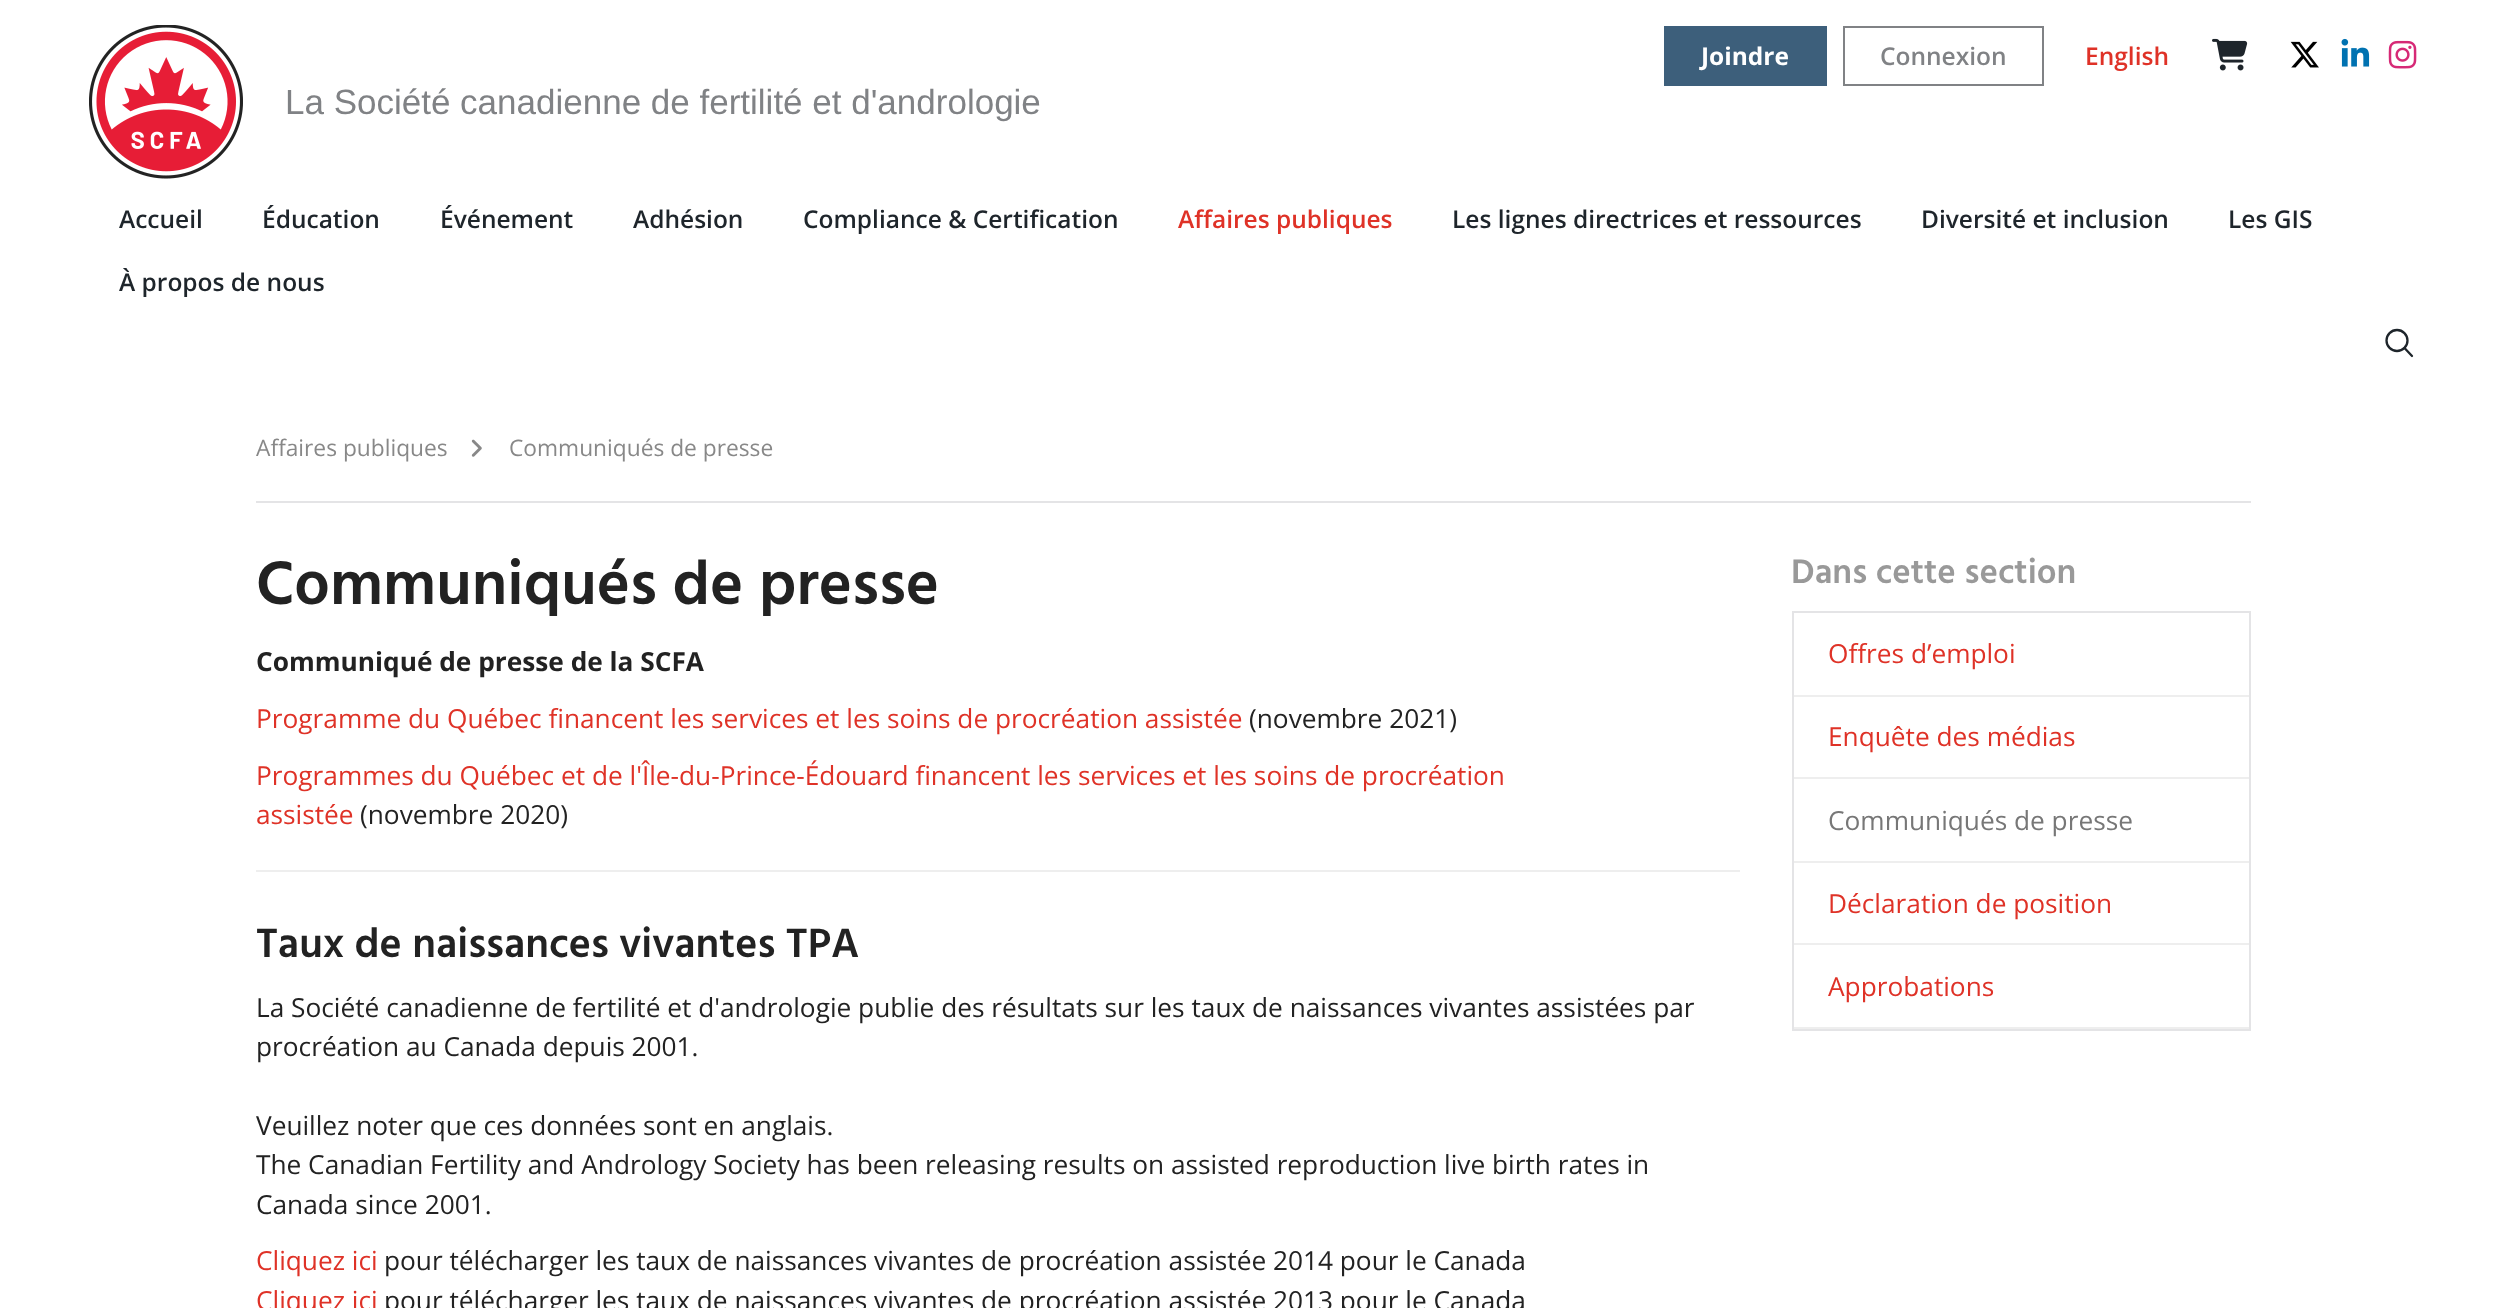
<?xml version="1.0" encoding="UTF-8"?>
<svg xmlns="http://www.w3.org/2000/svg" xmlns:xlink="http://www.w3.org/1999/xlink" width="2506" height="1308">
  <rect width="100%" height="100%" fill="#ffffff" />
  <rect x="1664" y="26" width="163" height="60" fill="#3d5f7b" />
  <rect x="1844" y="27" width="199" height="58" fill="none" stroke="#808285" stroke-width="2" />
  <image x="2212" y="38" width="36" height="33" xlink:href="image1.png" />
  <image x="2290" y="41" width="29" height="27" xlink:href="image2.png" />
  <image x="2341" y="38" width="29" height="29" xlink:href="image3.png" />
  <image x="2388" y="40" width="29" height="29" xlink:href="image4.png" />
  <image x="89" y="25" width="154" height="154" xlink:href="image5.png" />
  <circle cx="2397" cy="340.5" r="10.5" fill="none" stroke="#1e252b" stroke-width="2.3" />
  <path d="M 2412 356 l -7.5 -8" fill="none" stroke="#1e252b" stroke-width="2.3" stroke-linecap="round" />
  <rect x="256" y="501" width="1995" height="2" fill="#e4e4e6" />
  <image x="471" y="439" width="11" height="18" xlink:href="image6.png" />
  <rect x="256" y="870" width="1484" height="2" fill="#eeeeee" />
  <rect x="1793" y="612" width="457" height="418" fill="none" stroke="#e4e4e6" stroke-width="2" />
  <rect x="1794" y="695" width="455" height="2" fill="#eeeeee" />
  <rect x="1794" y="777" width="455" height="2" fill="#eeeeee" />
  <rect x="1794" y="861" width="455" height="2" fill="#eeeeee" />
  <rect x="1794" y="943" width="455" height="2" fill="#eeeeee" />
  <rect x="1794" y="1027" width="455" height="2" fill="#eeeeee" />
  <text x="1701" y="65" style="font-family: Open Sans; font-size: 24.5px; font-weight: bold; fill: #ffffff">Joindre</text>
  <text x="1880" y="65" style="font-family: Open Sans; font-size: 24.5px; font-weight: 600; fill: #808285">Connexion</text>
  <text x="2085" y="65" style="font-family: Open Sans; font-size: 24.5px; font-weight: 600; fill: #df3227">English</text>
  <text x="285" y="114" style="font-family: Liberation Sans; font-size: 35px; fill: #808285">La Société canadienne de fertilité et d'andrologie</text>
  <text x="119" y="228" style="font-family: Open Sans; font-size: 24.5px; font-weight: 600; fill: #1e252b">Accueil</text>
  <text x="262" y="228" style="font-family: Open Sans; font-size: 24.5px; font-weight: 600; fill: #1e252b">Éducation</text>
  <text x="440" y="228" style="font-family: Open Sans; font-size: 24.5px; font-weight: 600; fill: #1e252b">Événement</text>
  <text x="633" y="228" style="font-family: Open Sans; font-size: 24.5px; font-weight: 600; fill: #1e252b">Adhésion</text>
  <text x="803" y="228" style="font-family: Open Sans; font-size: 24.5px; font-weight: 600; fill: #1e252b">Compliance &amp; Certification</text>
  <text x="1178" y="228" style="font-family: Open Sans; font-size: 24.5px; font-weight: 600; fill: #df3227">Affaires publiques</text>
  <text x="1452" y="228" style="font-family: Open Sans; font-size: 24.5px; font-weight: 600; fill: #1e252b">Les lignes directrices et ressources</text>
  <text x="1921" y="228" style="font-family: Open Sans; font-size: 24.5px; font-weight: 600; fill: #1e252b">Diversité et inclusion</text>
  <text x="2228" y="228" style="font-family: Open Sans; font-size: 24.5px; font-weight: 600; fill: #1e252b">Les GIS</text>
  <text x="119" y="291" style="font-family: Open Sans; font-size: 24.5px; font-weight: 600; fill: #1e252b">À propos de nous</text>
  <text x="256" y="456" style="font-family: Open Sans; font-size: 22.75px; fill: #888888">Affaires publiques</text>
  <text x="509" y="456" style="font-family: Open Sans; font-size: 22.75px; fill: #888888">Communiqués de presse</text>
  <text x="256" y="604" style="font-family: Hind; font-size: 63px; font-weight: 600; fill: #222222">Communiqués de presse</text>
  <text x="256" y="671" style="font-family: Open Sans; font-size: 26.25px; font-weight: bold; fill: #222222">Communiqué de presse de la SCFA</text>
  <text x="256" y="728" style="font-family: Open Sans; font-size: 26.25px; fill: #df3227">Programme du Québec financent les services et les soins de procréation assistée</text>
  <text x="1249" y="728" style="font-family: Open Sans; font-size: 26.25px; fill: #222222">(novembre 2021)</text>
  <text x="256" y="785" style="font-family: Open Sans; font-size: 26.25px; fill: #df3227">Programmes du Québec et de l'Île-du-Prince-Édouard financent les services et les soins de procréation</text>
  <text x="256" y="824" style="font-family: Open Sans; font-size: 26.25px; fill: #df3227">assistée</text>
  <text x="360" y="824" style="font-family: Open Sans; font-size: 26.25px; fill: #222222">(novembre 2020)</text>
  <text x="256" y="957" style="font-family: Hind; font-size: 42px; font-weight: 600; fill: #222222">Taux de naissances vivantes TPA</text>
  <text x="256" y="1017" style="font-family: Open Sans; font-size: 26.25px; fill: #222222">La Société canadienne de fertilité et d'andrologie publie des résultats sur les taux de naissances vivantes assistées par</text>
  <text x="256" y="1056" style="font-family: Open Sans; font-size: 26.25px; fill: #222222">procréation au Canada depuis 2001.</text>
  <text x="256" y="1135" style="font-family: Open Sans; font-size: 26.25px; fill: #222222">Veuillez noter que ces données sont en anglais.</text>
  <text x="256" y="1174" style="font-family: Open Sans; font-size: 26.25px; fill: #222222">The Canadian Fertility and Andrology Society has been releasing results on assisted reproduction live birth rates in</text>
  <text x="256" y="1214" style="font-family: Open Sans; font-size: 26.25px; fill: #222222">Canada since 2001.</text>
  <text x="256" y="1270" style="font-family: Open Sans; font-size: 26.25px; fill: #df3227">Cliquez ici</text>
  <text x="384" y="1270" style="font-family: Open Sans; font-size: 26.25px; fill: #222222">pour télécharger les taux de naissances vivantes de procréation assistée 2014 pour le Canada</text>
  <text x="256" y="1310" style="font-family: Open Sans; font-size: 26.25px; fill: #df3227">Cliquez ici</text>
  <text x="384" y="1310" style="font-family: Open Sans; font-size: 26.25px; fill: #222222">pour télécharger les taux de naissances vivantes de procréation assistée 2013 pour le Canada</text>
  <text x="1791" y="583" style="font-family: Hind; font-size: 35px; font-weight: 600; fill: #999999">Dans cette section</text>
  <text x="1828" y="663" style="font-family: Open Sans; font-size: 26.25px; fill: #df3227">Offres d’emploi</text>
  <text x="1828" y="746" style="font-family: Open Sans; font-size: 26.25px; fill: #df3227">Enquête des médias</text>
  <text x="1828" y="830" style="font-family: Open Sans; font-size: 26.25px; fill: #777777">Communiqués de presse</text>
  <text x="1828" y="913" style="font-family: Open Sans; font-size: 26.25px; fill: #df3227">Déclaration de position</text>
  <text x="1828" y="996" style="font-family: Open Sans; font-size: 26.25px; fill: #df3227">Approbations</text>
</svg>
